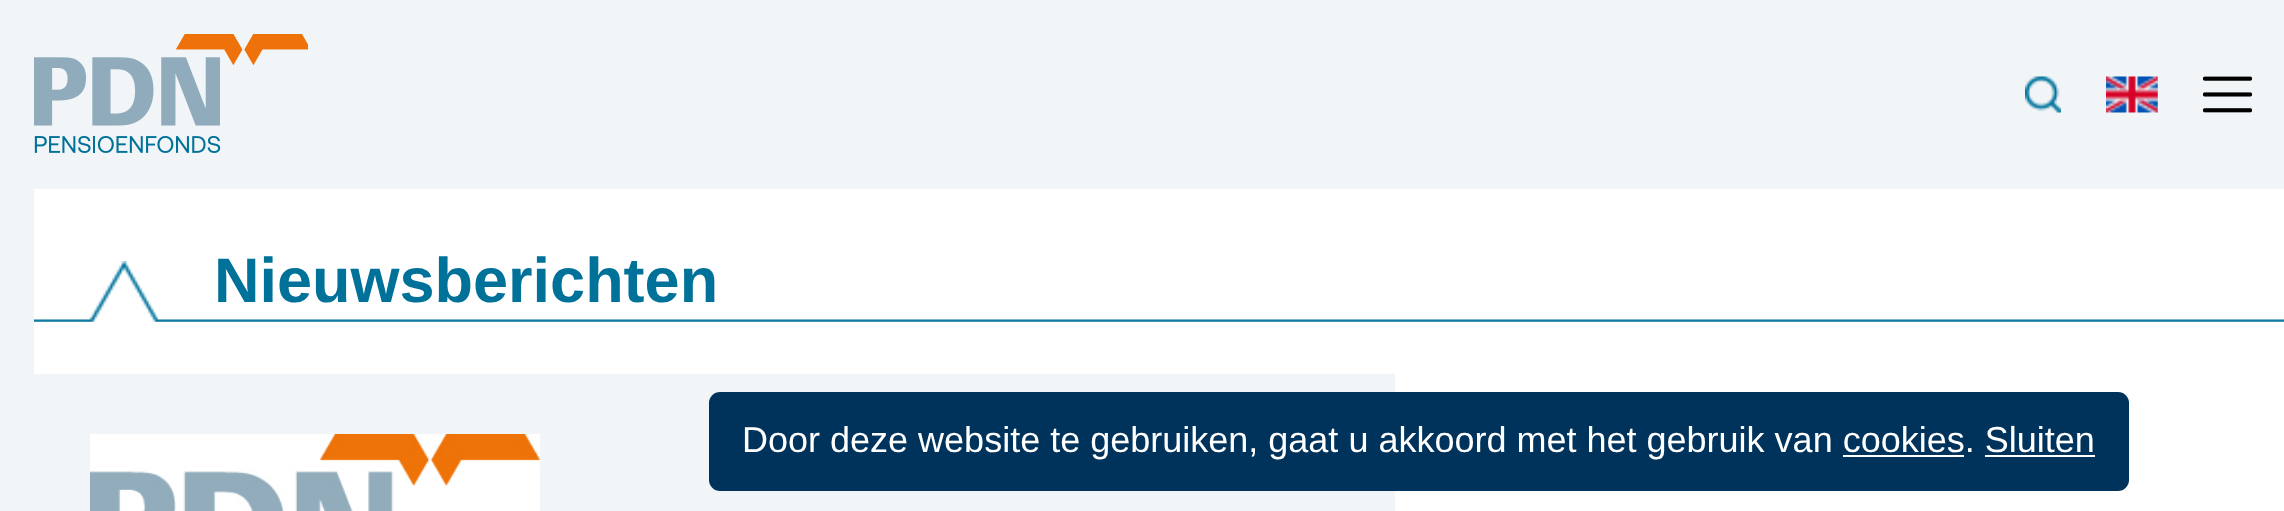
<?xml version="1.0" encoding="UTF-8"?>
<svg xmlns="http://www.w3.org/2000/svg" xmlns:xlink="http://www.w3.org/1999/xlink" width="2284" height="511">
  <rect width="100%" height="100%" fill="#ffffff" />
  <rect width="2284" height="189" fill="#f1f5f7" />
  <image x="34" y="34" width="274" height="119" xlink:href="image1.png" />
  <image x="2025" y="76" width="36" height="37" xlink:href="image2.png" />
  <image x="2106" y="76" width="52" height="37" xlink:href="image3.png" />
  <image x="2203" y="76" width="49" height="37" xlink:href="image4.png" />
  <rect y="189" width="1395" height="322" fill="#f1f5f7" />
  <image x="90" y="434" width="450" height="77" xlink:href="image5.png" />
  <rect x="34" y="189" width="1361" height="185" fill="#ffffff" />
  <image x="34" y="261" width="2250" height="61" xlink:href="image6.png" />
  <rect x="709" y="392" width="1420" height="99" rx="11" fill="#00335b" />
  <rect x="1843" y="455" width="121" height="2" fill="#ffffff" />
  <rect x="1985" y="455" width="110" height="2" fill="#ffffff" />
  <text x="214" y="302" style="font-family: Liberation Sans; font-size: 63px; font-weight: bold; fill: #007198">Nieuwsberichten</text>
  <text x="742" y="452" style="font-family: Liberation Sans; font-size: 36px; fill: #ffffff">Door deze website te gebruiken, gaat u akkoord met het gebruik van cookies. Sluiten</text>
</svg>
